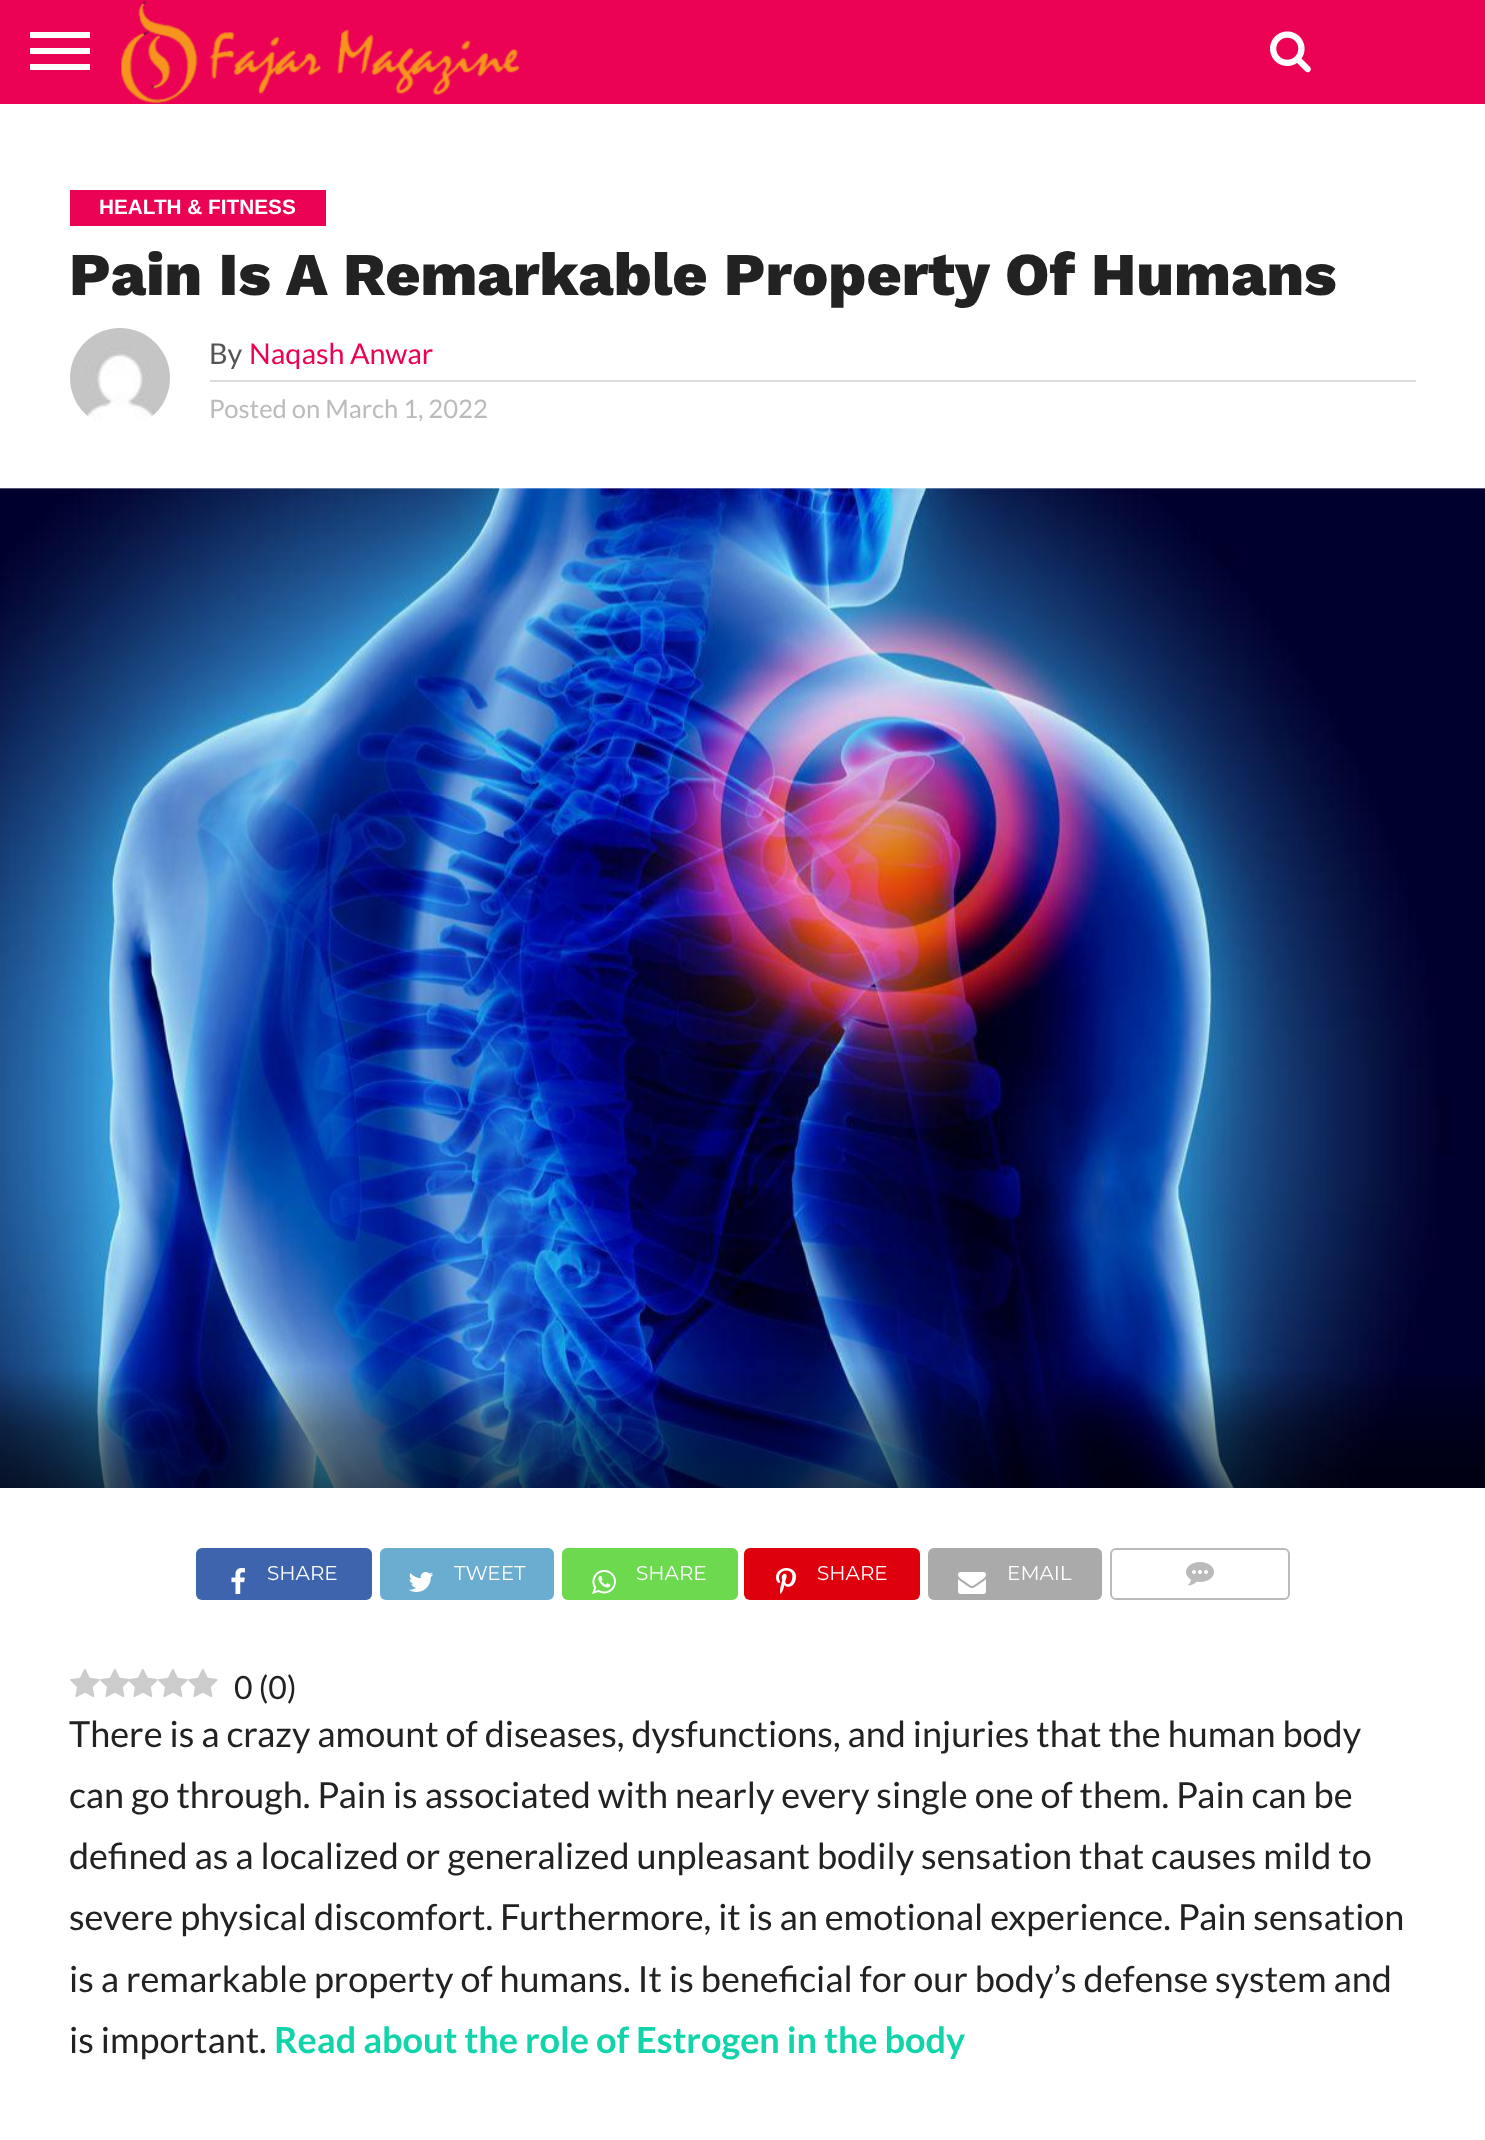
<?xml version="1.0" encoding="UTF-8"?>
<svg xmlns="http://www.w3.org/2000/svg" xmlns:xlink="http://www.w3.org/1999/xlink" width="1485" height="2140">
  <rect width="100%" height="100%" fill="#ffffff" />
  <rect width="1485" height="104" fill="#eb0254" />
  <rect x="30" y="32" width="60" height="6" fill="#ffffff" />
  <rect x="30" y="48" width="60" height="6" fill="#ffffff" />
  <rect x="30" y="64" width="60" height="6" fill="#ffffff" />
  <image x="121" y="0" width="399" height="104" xlink:href="image1.png" />
  <image x="1270" y="31" width="41" height="42" xlink:href="image2.png" />
  <rect x="70" y="190" width="256" height="36" fill="#eb0254" />
  <image x="70" y="328" width="100" height="93" xlink:href="image3.png" />
  <rect x="210" y="380" width="1206" height="2" fill="#dddddd" />
  <image x="0" y="488" width="1485" height="1000" xlink:href="image4.png" />
  <rect x="196" y="1548" width="176" height="52" rx="6" fill="#3e64ad" />
  <image x="231" y="1568" width="14" height="26" xlink:href="image5.png" />
  <rect x="380" y="1548" width="174" height="52" rx="6" fill="#6aadd1" />
  <image x="408" y="1572" width="26" height="20" xlink:href="image6.png" />
  <rect x="562" y="1548" width="176" height="52" rx="6" fill="#6cd94e" />
  <image x="592" y="1569" width="24" height="25" xlink:href="image7.png" />
  <rect x="744" y="1548" width="176" height="52" rx="6" fill="#de010d" />
  <image x="776" y="1568" width="20" height="26" xlink:href="image8.png" />
  <rect x="928" y="1548" width="174" height="52" rx="6" fill="#aaaaaa" />
  <image x="958" y="1572" width="28" height="22" xlink:href="image9.png" />
  <rect x="1111" y="1549" width="178" height="50" rx="5" fill="none" stroke="#bbbbbb" stroke-width="2" />
  <image x="1186" y="1562" width="28" height="24" xlink:href="image10.png" />
  <image x="70" y="1669" width="30" height="29" xlink:href="image11.png" />
  <image x="100" y="1669" width="29" height="29" xlink:href="image12.png" />
  <image x="129" y="1669" width="29" height="29" xlink:href="image13.png" />
  <image x="158" y="1669" width="30" height="29" xlink:href="image11.png" />
  <image x="188" y="1669" width="30" height="29" xlink:href="image11.png" />
  <text x="99" y="214" style="font-family: Liberation Sans; font-size: 20.75px; font-weight: bold; fill: #ffffff">HEALTH &amp; FITNESS</text>
  <text x="69" y="295" style="font-family: Work Sans; font-size: 60.8px; font-weight: 800; fill: #222222">Pain Is A Remarkable Property Of Humans</text>
  <text x="209" y="364" style="font-family: Lato; font-size: 28.75px; fill: #555555">By</text>
  <text x="249" y="364" style="font-family: Lato; font-size: 28.75px; fill: #eb0254">Naqash Anwar</text>
  <text x="209" y="418" style="font-family: Lato; font-size: 25.6px; fill: #bbbbbb">Posted on March 1, 2022</text>
  <text x="267" y="1580" style="font-family: Montserrat; font-size: 20px; fill: #ffffff">SHARE</text>
  <text x="454" y="1580" style="font-family: Montserrat; font-size: 20px; fill: #ffffff">TWEET</text>
  <text x="636" y="1580" style="font-family: Montserrat; font-size: 20px; fill: #ffffff">SHARE</text>
  <text x="817" y="1580" style="font-family: Montserrat; font-size: 20px; fill: #ffffff">SHARE</text>
  <text x="1007" y="1580" style="font-family: Montserrat; font-size: 20px; fill: #ffffff">EMAIL</text>
  <text x="234" y="1699" style="font-family: Lato; font-size: 32px; fill: #222222">0 (0)</text>
  <text x="69" y="1747" style="font-family: Lato; font-size: 36px; fill: #222222">There is a crazy amount of diseases, dysfunctions, and injuries that the human body</text>
  <text x="69" y="1808" style="font-family: Lato; font-size: 36px; fill: #222222">can go through. Pain is associated with nearly every single one of them. Pain can be</text>
  <text x="69" y="1869" style="font-family: Lato; font-size: 36px; fill: #222222">defined as a localized or generalized unpleasant bodily sensation that causes mild to</text>
  <text x="69" y="1930" style="font-family: Lato; font-size: 36px; fill: #222222">severe physical discomfort. Furthermore, it is an emotional experience. Pain sensation</text>
  <text x="69" y="1992" style="font-family: Lato; font-size: 36px; fill: #222222">is a remarkable property of humans. It is beneficial for our body’s defense system and</text>
  <text x="69" y="2053" style="font-family: Lato; font-size: 36px; fill: #222222">is important.</text>
  <text x="274" y="2053" style="font-family: Lato; font-size: 36px; font-weight: bold; fill: #11d4ab">Read about the role of Estrogen in the body</text>
</svg>
